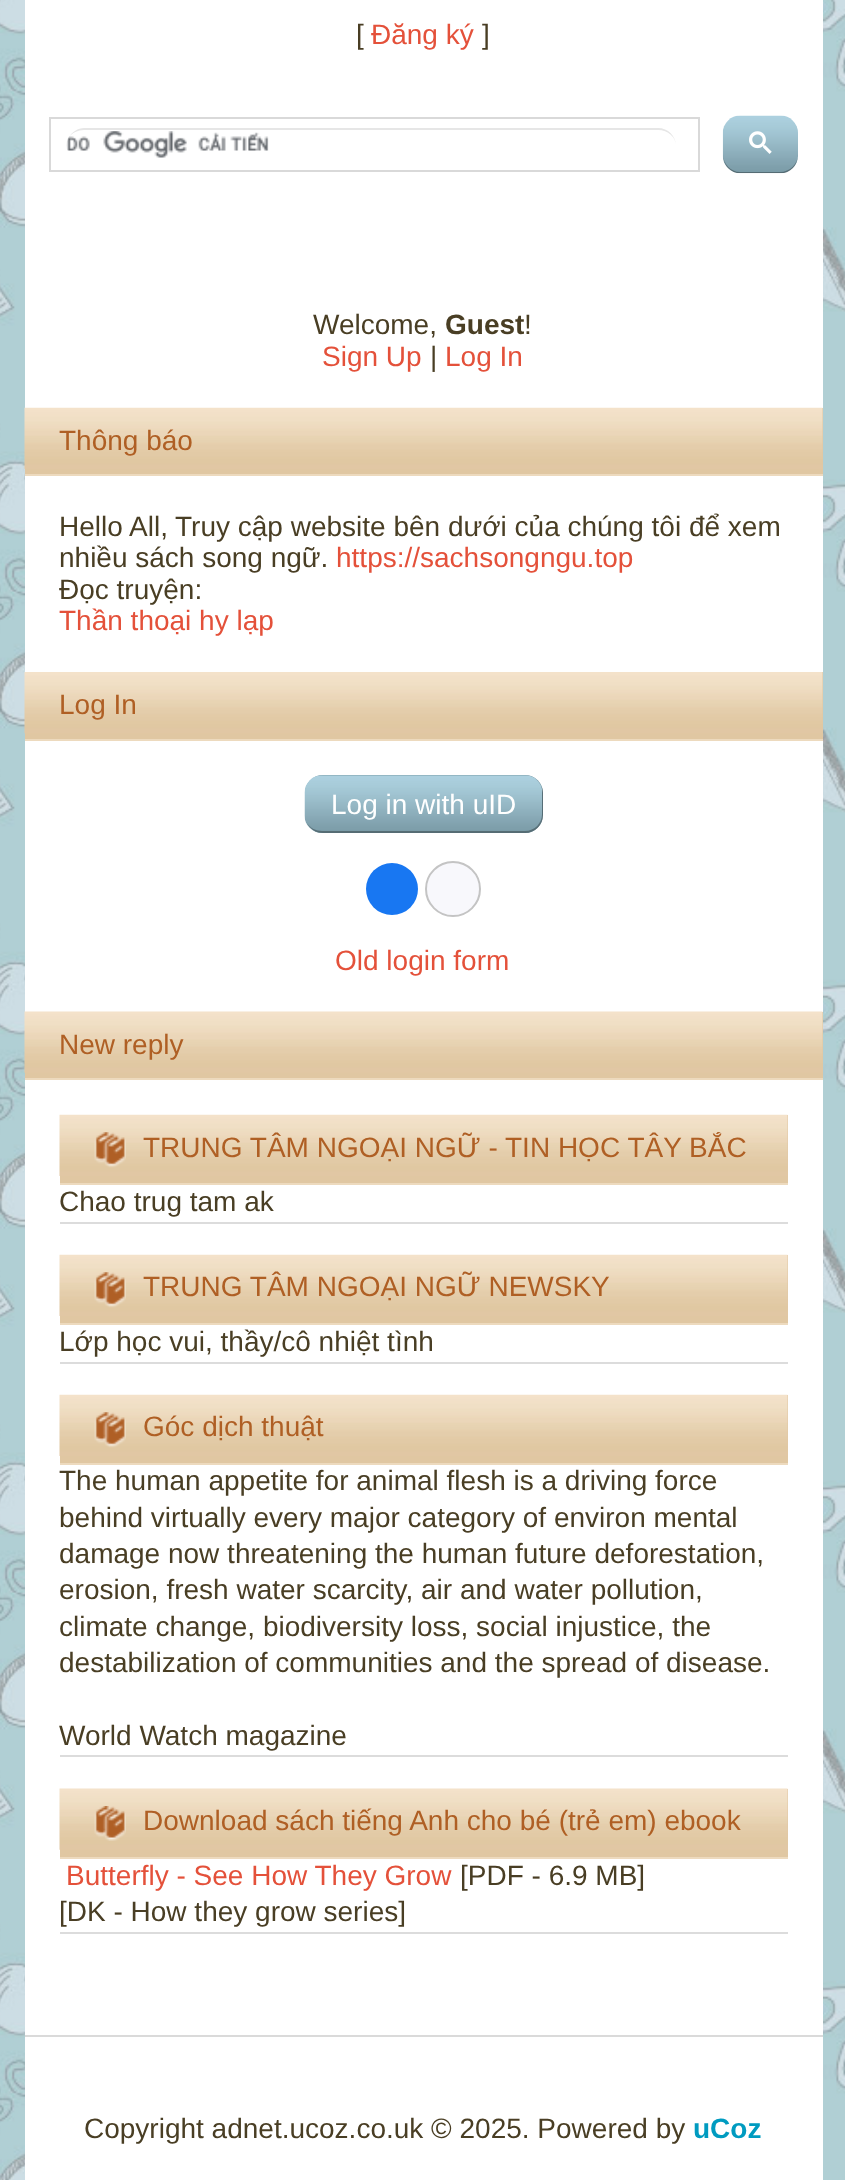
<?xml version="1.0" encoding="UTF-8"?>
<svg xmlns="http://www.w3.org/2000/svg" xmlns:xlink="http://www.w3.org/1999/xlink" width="845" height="2180">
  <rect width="100%" height="100%" fill="#ffffff" />
  <image x="0" y="0" width="845" height="2180" xlink:href="image1.png" />
  <rect x="25" width="798" height="2035" fill="#ffffff" />
  <rect x="50" y="118" width="649" height="53" fill="none" stroke="#d9d9d9" stroke-width="2" />
  <image x="66" y="131" width="203" height="27" xlink:href="image2.png" />
  <path d="M 84 130 h 574 c 10 0 18 7 18 16 c 0 -10 -8 -18 -18 -18 h -574 c -6 0 -12 4 -15 9 c 3 -4 9 -7 15 -7 z" fill="#e6e6e6" />
  <image x="722" y="115" width="76" height="59" xlink:href="image3.png" />
  <path d="M 723 154 c 0 9 5 17 14 19 h 23 h 24 c 9 -2 14 -10 14 -19 c 0 10 -8 18 -18 18 h -40 c -9 0 -17 -8 -17 -18 z" fill="#000000" fill-opacity="0.3" />
  <image x="749" y="131" width="23" height="23" xlink:href="image4.png" />
  <rect x="25" y="408" width="798" height="66" fill="#e0c7a2" />
  <image x="24" y="407" width="799" height="62" xlink:href="image5.png" />
  <rect x="25" y="474" width="798" height="2" fill="#eddabe" />
  <rect x="25" y="672" width="798" height="67" fill="#e0c7a2" />
  <image x="24" y="672" width="799" height="62" xlink:href="image6.png" />
  <rect x="25" y="739" width="798" height="2" fill="#eddabe" />
  <rect x="305" y="775" width="238" height="58" rx="18" fill="#7394a0" />
  <image x="304" y="775" width="239" height="58" xlink:href="image7.png" />
  <path d="M 307 823 c 3 6 9 10 16 10 h 202 c 10 0 18 -8 18 -18 v -22 c 0 -3 -1 -6 -2 -8 c 1 2 1 4 1 6 v 23 c 0 9 -7 17 -17 17 h -203 c -6 0 -12 -3 -15 -8 z" fill="#000000" fill-opacity="0.3" />
  <circle cx="392" cy="889" r="26" fill="#1877f2" />
  <circle cx="453" cy="889" r="27" fill="#f8f8fc" stroke="#c4c4c4" stroke-width="2" />
  <rect x="25" y="1012" width="798" height="66" fill="#e0c7a2" />
  <image x="24" y="1011" width="799" height="62" xlink:href="image8.png" />
  <rect x="25" y="1078" width="798" height="2" fill="#eddabe" />
  <rect x="60" y="1222" width="728" height="2" fill="#dcdcdc" />
  <rect x="60" y="1115" width="728" height="68" fill="#e0c7a2" />
  <image x="59" y="1114" width="729" height="62" xlink:href="image9.png" />
  <rect x="60" y="1183" width="728" height="2" fill="#eddabe" />
  <image x="94" y="1132" width="32" height="36" xlink:href="image10.png" />
  <rect x="60" y="1362" width="728" height="2" fill="#dcdcdc" />
  <rect x="60" y="1255" width="728" height="68" fill="#e0c7a2" />
  <image x="59" y="1254" width="729" height="62" xlink:href="image9.png" />
  <rect x="60" y="1323" width="728" height="2" fill="#eddabe" />
  <image x="94" y="1272" width="32" height="36" xlink:href="image10.png" />
  <rect x="60" y="1755" width="728" height="2" fill="#dcdcdc" />
  <rect x="60" y="1395" width="728" height="68" fill="#e0c7a2" />
  <image x="59" y="1394" width="729" height="62" xlink:href="image9.png" />
  <rect x="60" y="1463" width="728" height="2" fill="#eddabe" />
  <image x="94" y="1412" width="32" height="36" xlink:href="image10.png" />
  <rect x="60" y="1932" width="728" height="2" fill="#dcdcdc" />
  <rect x="60" y="1789" width="728" height="68" fill="#e0c7a2" />
  <image x="59" y="1788" width="729" height="62" xlink:href="image11.png" />
  <rect x="60" y="1857" width="728" height="2" fill="#eddabe" />
  <image x="94" y="1806" width="32" height="35" xlink:href="image12.png" />
  <rect x="25" y="2037" width="798" height="143" fill="#ffffff" />
  <rect x="25" y="2035" width="798" height="2" fill="#dadada" />
  <text x="356" y="44" style="font-family: Liberation Sans; font-size: 28px; fill: #493e24">[</text>
  <text x="371" y="44" style="font-family: Liberation Sans; font-size: 28px; fill: #e4513a">Đăng ký</text>
  <text x="482" y="44" style="font-family: Liberation Sans; font-size: 28px; fill: #493e24">]</text>
  <text x="313" y="334" style="font-family: Liberation Sans; font-size: 28px; fill: #493e24">Welcome,</text>
  <text x="445" y="334" style="font-family: Liberation Sans; font-size: 28px; font-weight: bold; fill: #493e24">Guest</text>
  <text x="524" y="334" style="font-family: Liberation Sans; font-size: 28px; fill: #493e24">!</text>
  <text x="322" y="366" style="font-family: Liberation Sans; font-size: 28px; fill: #e4513a">Sign Up</text>
  <text x="430" y="366" style="font-family: Liberation Sans; font-size: 28px; fill: #493e24">|</text>
  <text x="445" y="366" style="font-family: Liberation Sans; font-size: 28px; fill: #e4513a">Log In</text>
  <text x="59" y="450" style="font-family: Liberation Sans; font-size: 28px; fill: #af5f24">Thông báo</text>
  <text x="59" y="536" style="font-family: Liberation Sans; font-size: 28px; fill: #493e24">Hello All,</text>
  <text x="175" y="536" style="font-family: Liberation Sans; font-size: 28px; fill: #493e24">Truy cập website bên dưới của chúng tôi để xem</text>
  <text x="59" y="567" style="font-family: Liberation Sans; font-size: 28px; fill: #493e24">nhiều sách song ngữ.</text>
  <text x="336" y="567" style="font-family: Liberation Sans; font-size: 28px; fill: #e4513a">https://sachsongngu.top</text>
  <text x="59" y="599" style="font-family: Liberation Sans; font-size: 28px; fill: #493e24">Đọc truyện:</text>
  <text x="59" y="630" style="font-family: Liberation Sans; font-size: 28px; fill: #e4513a">Thần thoại hy lạp</text>
  <text x="59" y="714" style="font-family: Liberation Sans; font-size: 28px; fill: #af5f24">Log In</text>
  <text x="331" y="814" style="font-family: Liberation Sans; font-size: 28px; fill: #ffffff">Log in with uID</text>
  <text x="335" y="970" style="font-family: Liberation Sans; font-size: 28px; fill: #e4513a">Old login form</text>
  <text x="59" y="1054" style="font-family: Liberation Sans; font-size: 28px; fill: #af5f24">New reply</text>
  <text x="143" y="1157" style="font-family: Liberation Sans; font-size: 28px; fill: #af5f24">TRUNG TÂM NGOẠI NGỮ - TIN HỌC TÂY BẮC</text>
  <text x="59" y="1211" style="font-family: Liberation Sans; font-size: 28px; fill: #493e24">Chao trug tam ak</text>
  <text x="143" y="1296" style="font-family: Liberation Sans; font-size: 28px; fill: #af5f24">TRUNG TÂM NGOẠI NGỮ NEWSKY</text>
  <text x="59" y="1351" style="font-family: Liberation Sans; font-size: 28px; fill: #493e24">Lớp học vui, thầy/cô nhiệt tình</text>
  <text x="143" y="1436" style="font-family: Liberation Sans; font-size: 28px; fill: #af5f24">Góc dịch thuật</text>
  <text x="59" y="1490" style="font-family: Liberation Sans; font-size: 28px; fill: #493e24">The human appetite for animal flesh is a driving force</text>
  <text x="59" y="1527" style="font-family: Liberation Sans; font-size: 28px; fill: #493e24">behind virtually every major category of environ mental</text>
  <text x="59" y="1563" style="font-family: Liberation Sans; font-size: 28px; fill: #493e24">damage now threatening the human future deforestation,</text>
  <text x="59" y="1599" style="font-family: Liberation Sans; font-size: 28px; fill: #493e24">erosion, fresh water scarcity, air and water pollution,</text>
  <text x="59" y="1636" style="font-family: Liberation Sans; font-size: 28px; fill: #493e24">climate change, biodiversity loss, social injustice, the</text>
  <text x="59" y="1672" style="font-family: Liberation Sans; font-size: 28px; fill: #493e24">destabilization of communities and the spread of disease.</text>
  <text x="59" y="1745" style="font-family: Liberation Sans; font-size: 28px; fill: #493e24">World Watch magazine</text>
  <text x="143" y="1830" style="font-family: Liberation Sans; font-size: 28px; fill: #af5f24">Download sách tiếng Anh cho bé (trẻ em) ebook</text>
  <text x="66" y="1885" style="font-family: Liberation Sans; font-size: 28px; fill: #e4513a">Butterfly - See How They Grow</text>
  <text x="460" y="1885" style="font-family: Liberation Sans; font-size: 28px; fill: #493e24">[PDF - 6.9 MB]</text>
  <text x="59" y="1921" style="font-family: Liberation Sans; font-size: 28px; fill: #493e24">[DK - How they grow series]</text>
  <text x="84" y="2138" style="font-family: Liberation Sans; font-size: 28px; fill: #493e24">Copyright adnet.ucoz.co.uk © 2025. Powered by</text>
  <text x="693" y="2138" style="font-family: Liberation Sans; font-size: 28px; font-weight: bold; fill: #009bc0">uCoz</text>
</svg>
